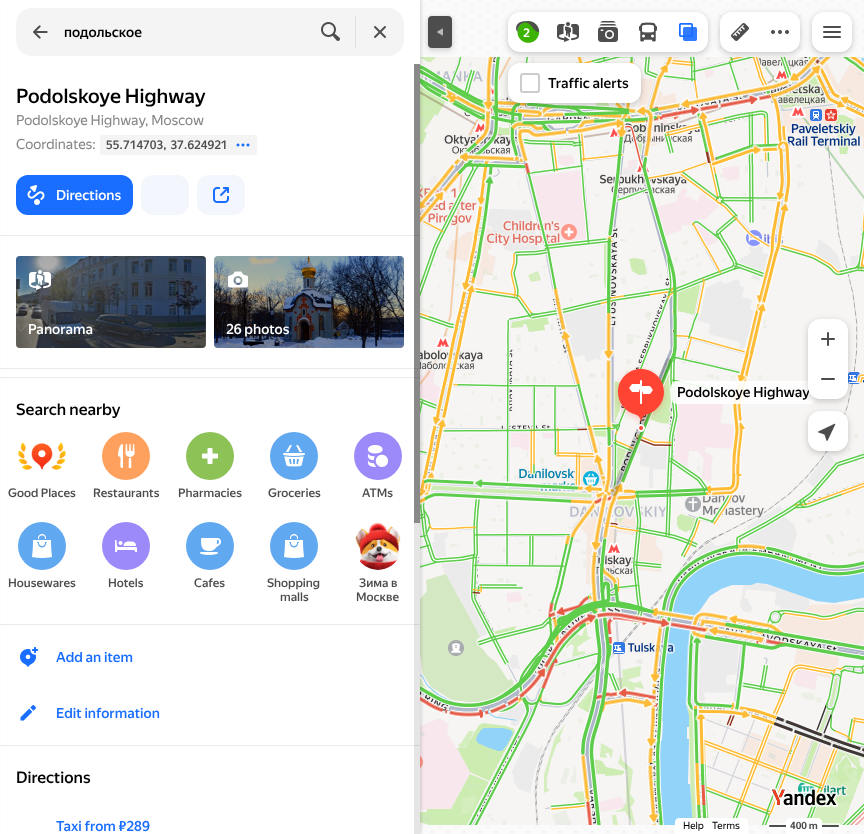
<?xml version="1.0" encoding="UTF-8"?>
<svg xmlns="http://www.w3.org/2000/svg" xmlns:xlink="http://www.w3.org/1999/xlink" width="864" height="834">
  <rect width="100%" height="100%" fill="#ffffff" />
  <image x="420" y="0" width="444" height="834" xlink:href="image1.png" />
  <image x="420" y="57" width="131" height="256" xlink:href="image36.png" />
  <image x="420" y="313" width="131" height="256" xlink:href="image39.png" />
  <image x="420" y="569" width="131" height="256" xlink:href="image42.png" />
  <image x="420" y="57" width="131" height="256" xlink:href="image45.png" />
  <image x="420" y="313" width="131" height="256" xlink:href="image48.png" />
  <image x="420" y="569" width="131" height="256" xlink:href="image51.png" />
  <rect x="2" width="420" height="834" fill="#000000" fill-opacity="0.1" filter="blur(1px)" />
  <rect x="428" y="18" width="24" height="32" rx="4" fill="#000000" fill-opacity="0.2" filter="blur(3px)" />
  <rect x="1" width="419" height="834" fill="#ffffff" />
  <rect x="16" y="8" width="388" height="48" rx="16" fill="#f4f4f4" />
  <image x="33" y="25" width="15" height="14" xlink:href="image2.png" />
  <image x="321" y="22" width="19" height="19" xlink:href="image3.png" />
  <rect x="355" y="16" width="1" height="32" fill="#e0e0e0" />
  <image x="374" y="26" width="12" height="12" xlink:href="image4.png" />
  <image x="551" y="57" width="256" height="256" xlink:href="image37.png" />
  <image x="551" y="57" width="256" height="256" xlink:href="image46.png" />
  <rect x="508" y="14" width="200" height="40" rx="12" fill="#000000" fill-opacity="0.2" filter="blur(3px)" />
  <rect x="548" y="12" width="120" height="40" fill="#ffffff" />
  <image x="557" y="22" width="22" height="20" xlink:href="image5.png" />
  <path d="M 668 12 h 28 c 6.5 0 12 5.5 12 12 v 16 c 0 6.5 -5.5 12 -12 12 h -28 z" fill="#ffffff" />
  <image x="679" y="23" width="18" height="18" xlink:href="image6.png" />
  <path d="M 520 12 h 28 v 40 h -28 c -6.5 0 -12 -5.5 -12 -12 v -16 c 0 -6.5 5.5 -12 12 -12 z" fill="#ffffff" />
  <image x="516" y="21" width="24" height="22" xlink:href="image7.png" />
  <image x="598" y="21" width="20" height="21" xlink:href="image8.png" />
  <image x="639" y="22" width="18" height="20" xlink:href="image9.png" />
  <image x="807" y="57" width="57" height="256" xlink:href="image38.png" />
  <image x="807" y="57" width="57" height="219" xlink:href="image47.png" />
  <rect x="720" y="14" width="80" height="40" rx="12" fill="#000000" fill-opacity="0.2" filter="blur(3px)" />
  <path d="M 732 12 h 28 v 40 h -28 c -6.5 0 -12 -5.5 -12 -12 v -16 c 0 -6.5 5.5 -12 12 -12 z" fill="#ffffff" />
  <image x="731" y="23" width="18" height="18" xlink:href="image10.png" />
  <path d="M 760 12 h 28 c 6.5 0 12 5.5 12 12 v 16 c 0 6.5 -5.5 12 -12 12 h -28 z" fill="#ffffff" />
  <image x="771" y="30" width="18" height="4" xlink:href="image11.png" />
  <rect x="812" y="14" width="40" height="40" rx="12" fill="#000000" fill-opacity="0.2" filter="blur(3px)" />
  <rect x="812" y="12" width="40" height="40" rx="12" fill="#ffffff" />
  <image x="823" y="26" width="18" height="12" xlink:href="image12.png" />
  <image x="551" y="313" width="256" height="256" xlink:href="image40.png" />
  <image x="807" y="313" width="57" height="256" xlink:href="image41.png" />
  <image x="551" y="313" width="256" height="256" xlink:href="image49.png" />
  <image x="807" y="373" width="57" height="196" xlink:href="image50.png" />
  <path d="M 613.5 493 l 55 -132" fill="none" stroke="#000000" stroke-opacity="0.18" stroke-width="6" stroke-linecap="round" stroke-linejoin="round" />
  <rect x="671" y="381" width="145" height="23" rx="6" fill="#ffffff" fill-opacity="0.9" />
  <rect x="808" y="321" width="40" height="80" rx="12" fill="#000000" fill-opacity="0.2" filter="blur(3px)" />
  <path d="M 820 319 h 16 c 6.5 0 12 5.5 12 12 v 28 h -40 v -28 c 0 -6.5 5.5 -12 12 -12 z" fill="#ffffff" />
  <image x="821" y="332" width="14" height="14" xlink:href="image13.png" />
  <rect x="808" y="413" width="40" height="40" rx="12" fill="#000000" fill-opacity="0.2" filter="blur(3px)" />
  <rect x="808" y="411" width="40" height="40" rx="12" fill="#ffffff" />
  <image x="818" y="423" width="18" height="18" xlink:href="image15.png" />
  <rect x="428" y="16" width="24" height="32" rx="4" fill="#4d4d4d" />
  <image x="437" y="28" width="6" height="8" xlink:href="image16.png" />
  <rect x="100" y="135" width="157" height="20" rx="2" fill="#f4f4f4" />
  <image x="236" y="143" width="14" height="4" xlink:href="image17.png" />
  <rect x="16" y="175" width="117" height="40" rx="12" fill="#196dff" />
  <image x="27" y="185" width="18" height="20" xlink:href="image18.png" />
  <rect x="141" y="175" width="48" height="40" rx="12" fill="#f3f6fc" />
  <rect x="197" y="175" width="48" height="40" rx="12" fill="#f3f6fc" />
  <image x="213" y="187" width="16" height="16" xlink:href="image19.png" />
  <rect y="235" width="420" height="1" fill="#ebebeb" />
  <rect y="368" width="420" height="1" fill="#ebebeb" />
  <image x="16" y="256" width="190" height="92" xlink:href="image20.png" />
  <rect x="16" y="256" width="190" height="92" rx="4" fill="#000000" fill-opacity="0.3" />
  <image x="29" y="270" width="22" height="20" xlink:href="image21.png" />
  <image x="214" y="256" width="190" height="92" xlink:href="image22.png" />
  <rect x="214" y="256" width="190" height="92" rx="4" fill="#000000" fill-opacity="0.3" />
  <image x="228" y="271" width="20" height="17" xlink:href="image23.png" />
  <rect y="377" width="420" height="1" fill="#ebebeb" />
  <rect y="624" width="420" height="1" fill="#ebebeb" />
  <image x="18" y="442" width="48" height="28" xlink:href="image24.png" />
  <circle cx="126" cy="456" r="24" fill="#ffa15e" />
  <image x="118" y="444" width="17" height="24" xlink:href="image25.png" />
  <circle cx="210" cy="456" r="24" fill="#8dc257" />
  <image x="202" y="448" width="16" height="16" xlink:href="image26.png" />
  <circle cx="294" cy="456" r="24" fill="#60a8f0" />
  <image x="283" y="445" width="22" height="22" xlink:href="image27.png" />
  <circle cx="378" cy="456" r="24" fill="#9c89fa" />
  <image x="367" y="445" width="22" height="22" xlink:href="image28.png" />
  <circle cx="42" cy="546" r="24" fill="#60a8f0" />
  <image x="32" y="534" width="20" height="24" xlink:href="image29.png" />
  <circle cx="126" cy="546" r="24" fill="#9c89fa" />
  <image x="115" y="540" width="22" height="12" xlink:href="image30.png" />
  <circle cx="210" cy="546" r="24" fill="#60a8f0" />
  <image x="200" y="538" width="21" height="17" xlink:href="image31.png" />
  <circle cx="294" cy="546" r="24" fill="#60a8f0" />
  <image x="284" y="534" width="20" height="24" xlink:href="image29.png" />
  <image x="355" y="522" width="46" height="48" xlink:href="image32.png" />
  <rect y="745" width="420" height="1" fill="#ebebeb" />
  <image x="20" y="647" width="18" height="20" xlink:href="image33.png" />
  <image x="20" y="705" width="16" height="16" xlink:href="image34.png" />
  <rect x="414" y="64" width="6" height="770" fill="#000000" fill-opacity="0.1" />
  <rect x="414" y="64" width="6" height="459" fill="#000000" fill-opacity="0.4" />
  <image x="551" y="569" width="256" height="256" xlink:href="image43.png" />
  <image x="807" y="569" width="57" height="256" xlink:href="image44.png" />
  <image x="551" y="569" width="256" height="256" xlink:href="image52.png" />
  <image x="807" y="569" width="57" height="256" xlink:href="image53.png" />
  <image x="770" y="787" width="69" height="21" xlink:href="image35.png" />
  <path d="M 679 818 h 65 c 2 0 4 2 4 4 v 12 h -73 v -12 c 0 -2 2 -4 4 -4 z" fill="#ffffff" />
  <rect x="767" y="823" width="74" height="6" rx="3" fill="#ffffff" fill-opacity="0.6" />
  <rect x="769" y="825" width="70" height="2" rx="1" fill="#4d4d4d" />
  <path d="M 790 818 h 28 c 2 0 4 2 4 4 v 12 h -36 v -12 c 0 -2 2 -4 4 -4 z" fill="#ffffff" />
  <image x="614" y="367" width="54" height="65" xlink:href="image54.png" />
  <image x="629" y="380" width="24" height="24" xlink:href="image55.png" />
  <rect x="508" y="65" width="133" height="40" rx="12" fill="#000000" fill-opacity="0.2" filter="blur(3px)" />
  <rect x="508" y="63" width="133" height="40" rx="12" fill="#ffffff" />
  <rect x="521" y="74" width="18" height="18" rx="2" fill="none" stroke="#cccccc" stroke-width="2" />
  <text x="64" y="37" style="font-family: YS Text; font-size: 14px; font-weight: 500; fill: #000000">подольское</text>
  <text x="523" y="37" style="font-family: YS Text; font-size: 12px; font-weight: bold; fill: #ffffff">2</text>
  <text x="16" y="103" style="font-family: YS Text; font-size: 20px; font-weight: 500; fill: #000000">Podolskoye Highway</text>
  <text x="16" y="125" style="font-family: YS Text; font-size: 14px; fill: #878787">Podolskoye Highway, Moscow</text>
  <text x="16" y="149" style="font-family: YS Text; font-size: 14px; fill: #878787">Coordinates:</text>
  <text x="106" y="149" style="font-family: YS Text; font-size: 12px; font-weight: 500; fill: #4d4d4d">55.714703, 37.624921</text>
  <text x="56" y="200" style="font-family: YS Text; font-size: 14px; font-weight: 500; fill: #ffffff">Directions</text>
  <text x="28" y="334" style="font-family: YS Text; font-size: 14px; font-weight: 500; fill: #ffffff">Panorama</text>
  <text x="226" y="334" style="font-family: YS Text; font-size: 14px; font-weight: 500; fill: #ffffff">26 photos</text>
  <text x="16" y="415" style="font-family: YS Text; font-size: 16px; font-weight: 500; fill: #000000">Search nearby</text>
  <text x="8" y="497" style="font-family: YS Text; font-size: 12px; font-weight: 500; fill: #4d4d4d">Good Places</text>
  <text x="93" y="497" style="font-family: YS Text; font-size: 12px; font-weight: 500; fill: #4d4d4d">Restaurants</text>
  <text x="178" y="497" style="font-family: YS Text; font-size: 12px; font-weight: 500; fill: #4d4d4d">Pharmacies</text>
  <text x="268" y="497" style="font-family: YS Text; font-size: 12px; font-weight: 500; fill: #4d4d4d">Groceries</text>
  <text x="362" y="497" style="font-family: YS Text; font-size: 12px; font-weight: 500; fill: #4d4d4d">ATMs</text>
  <text x="8" y="587" style="font-family: YS Text; font-size: 12px; font-weight: 500; fill: #4d4d4d">Housewares</text>
  <text x="108" y="587" style="font-family: YS Text; font-size: 12px; font-weight: 500; fill: #4d4d4d">Hotels</text>
  <text x="194" y="587" style="font-family: YS Text; font-size: 12px; font-weight: 500; fill: #4d4d4d">Cafes</text>
  <text x="267" y="587" style="font-family: YS Text; font-size: 12px; font-weight: 500; fill: #4d4d4d">Shopping</text>
  <text x="280" y="601" style="font-family: YS Text; font-size: 12px; font-weight: 500; fill: #4d4d4d">malls</text>
  <text x="359" y="587" style="font-family: YS Text; font-size: 12px; font-weight: 500; fill: #4d4d4d">Зима в</text>
  <text x="356" y="601" style="font-family: YS Text; font-size: 12px; font-weight: 500; fill: #4d4d4d">Москве</text>
  <text x="56" y="662" style="font-family: YS Text; font-size: 14px; font-weight: 500; fill: #196dff">Add an item</text>
  <text x="56" y="718" style="font-family: YS Text; font-size: 14px; font-weight: 500; fill: #196dff">Edit information</text>
  <text x="16" y="783" style="font-family: YS Text; font-size: 16px; font-weight: 500; fill: #000000">Directions</text>
  <text x="56" y="831" style="font-family: YS Text; font-size: 14px; font-weight: 500; fill: #196dff">Taxi from ₽289</text>
  <text x="683" y="829" style="font-family: YS Text; font-size: 10px; fill: #000000">Help</text>
  <text x="712" y="829" style="font-family: YS Text; font-size: 10px; fill: #000000">Terms</text>
  <text x="790" y="829" style="font-family: YS Text; font-size: 10px; font-weight: bold; fill: #4d4d4d">400 m</text>
  <text x="677" y="397" style="font-family: YS Text; font-size: 14px; font-weight: 500; fill: #000000">Podolskoye Highway</text>
  <path d="M 808 359 h 40 v 28 c 0 6.5 -5.5 12 -12 12 h -16 c -6.5 0 -12 -5.5 -12 -12 z" fill="#ffffff" />
  <image x="821" y="378" width="14" height="2" xlink:href="image14.png" />
  <text x="548" y="88" style="font-family: YS Text; font-size: 14px; font-weight: 500; fill: #000000">Traffic alerts</text>
</svg>
